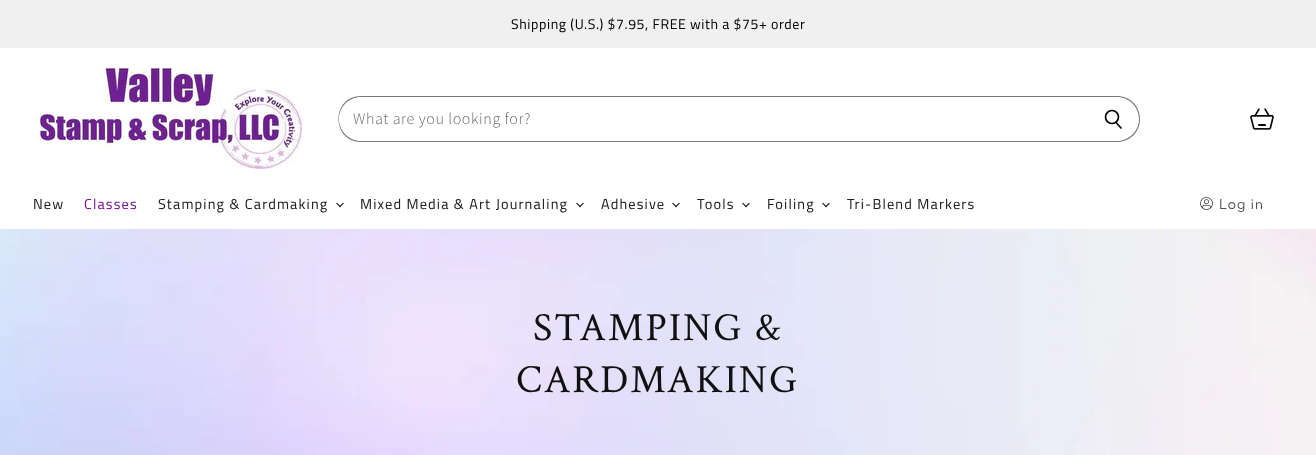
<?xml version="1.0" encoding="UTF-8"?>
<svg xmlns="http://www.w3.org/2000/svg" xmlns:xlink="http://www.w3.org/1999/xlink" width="1316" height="455">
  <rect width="100%" height="100%" fill="#ffffff" />
  <rect width="1316" height="48" fill="#f0f0f0" />
  <image x="40" y="68" width="262" height="101" xlink:href="image1.png" />
  <path d="M 361 96 h 726 v 46 h -726 c -30 0 -30 -46 0 -46 z m 0 1 h 726 v 44 h -726 c -12 0 -22 -10 -22 -22 c 0 -12 10 -22 22 -22 z" fill="#777777" fill-rule="evenodd" />
  <path d="M 1087 96 h 30 c 13 0 23 10 23 23 c 0 13 -10 23 -23 23 h -30 z m 0 1 h 30 c 12 0 22 10 22 22 c 0 12 -10 22 -22 22 h -30 z" fill="#777777" fill-rule="evenodd" />
  <path d="M 1121.5 128.5 l -5.5 -6" fill="none" stroke="#000000" stroke-width="1.7" />
  <circle cx="1112" cy="117" r="6.5" fill="none" stroke="#000000" stroke-width="1.7" />
  <image x="1250" y="108" width="24" height="22" xlink:href="image2.png" />
  <image x="336" y="202" width="8" height="6" xlink:href="image3.png" />
  <image x="576" y="202" width="8" height="6" xlink:href="image3.png" />
  <image x="672" y="202" width="8" height="6" xlink:href="image3.png" />
  <image x="742" y="202" width="8" height="6" xlink:href="image3.png" />
  <image x="822" y="202" width="8" height="6" xlink:href="image3.png" />
  <image x="1200" y="197" width="13" height="13" xlink:href="image4.png" />
  <image x="0" y="229" width="1316" height="226" xlink:href="image5.png" />
  <text x="511" y="29" style="font-family: Cairo; font-size: 14px; letter-spacing: 0.6px; fill: #000000">Shipping (U.S.) $7.95, FREE with a $75+ order</text>
  <text x="353" y="124" style="font-family: Source Sans Pro; font-size: 16px; font-weight: 300; letter-spacing: 0.6px; fill: #666666">What are you looking for?</text>
  <text x="33" y="209" style="font-family: Cairo; font-size: 14.4px; letter-spacing: 1.15px; fill: #212121">New</text>
  <text x="84" y="209" style="font-family: Cairo; font-size: 14.4px; letter-spacing: 1.15px; fill: #741696">Classes</text>
  <text x="158" y="209" style="font-family: Cairo; font-size: 14.4px; letter-spacing: 1.15px; fill: #212121">Stamping &amp; Cardmaking</text>
  <text x="360" y="209" style="font-family: Cairo; font-size: 14.4px; letter-spacing: 1.15px; fill: #212121">Mixed Media &amp; Art Journaling</text>
  <text x="601" y="209" style="font-family: Cairo; font-size: 14.4px; letter-spacing: 1.15px; fill: #212121">Adhesive</text>
  <text x="697" y="209" style="font-family: Cairo; font-size: 14.4px; letter-spacing: 1.15px; fill: #212121">Tools</text>
  <text x="767" y="209" style="font-family: Cairo; font-size: 14.4px; letter-spacing: 1.15px; fill: #212121">Foiling</text>
  <text x="847" y="209" style="font-family: Cairo; font-size: 14.4px; letter-spacing: 1.15px; fill: #212121">Tri-Blend Markers</text>
  <text x="1219" y="209" style="font-family: Outfit; font-size: 14.4px; font-weight: 300; letter-spacing: 1.15px; fill: #4d4d4d">Log in</text>
  <text x="533" y="340" style="font-family: Crimson Text; font-size: 40px; letter-spacing: 2px; fill: #111111">STAMPING &amp;</text>
  <text x="516" y="392" style="font-family: Crimson Text; font-size: 40px; letter-spacing: 2px; fill: #111111">CARDMAKING</text>
</svg>
